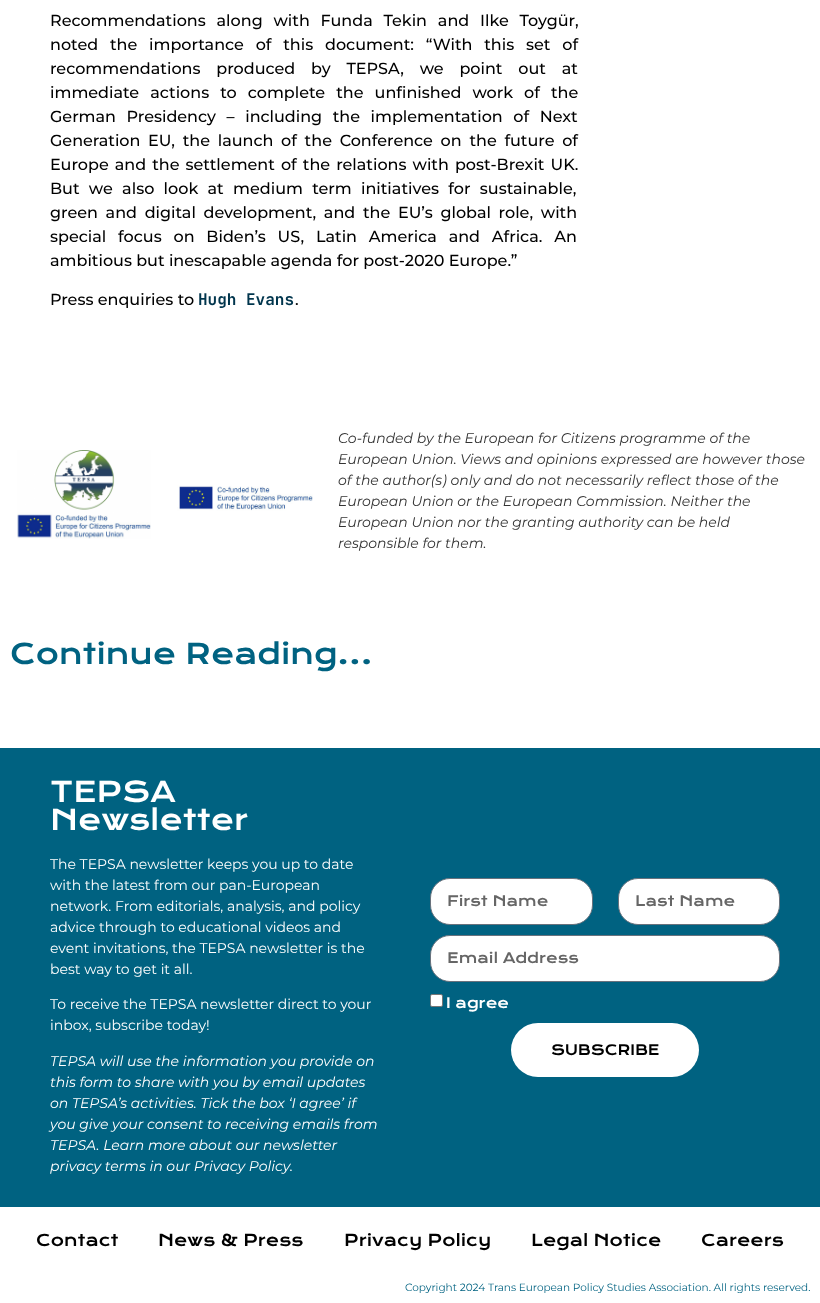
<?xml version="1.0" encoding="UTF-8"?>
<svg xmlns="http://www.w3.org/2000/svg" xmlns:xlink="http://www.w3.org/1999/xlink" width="820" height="1303">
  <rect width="100%" height="100%" fill="#ffffff" />
  <image x="17" y="450" width="134" height="89" xlink:href="image1.png" />
  <image x="177" y="485" width="136" height="26" xlink:href="image2.png" />
  <rect y="748" width="820" height="459" fill="#006281" />
  <rect x="430.5" y="878.5" width="162" height="46" rx="19.5" fill="#ffffff" stroke="#69727d" />
  <rect x="618.5" y="878.5" width="161" height="46" rx="19.5" fill="#ffffff" stroke="#69727d" />
  <rect x="430.5" y="935.5" width="349" height="46" rx="19.5" fill="#ffffff" stroke="#69727d" />
  <rect x="430.5" y="994.5" width="12" height="12" rx="1.5" fill="#ffffff" stroke="#767676" />
  <rect x="511" y="1023" width="188" height="54" rx="27" fill="#ffffff" />
  <text x="50" y="26" word-spacing="6.5" style="font-family: Montserrat; font-size: 16px; font-weight: 500; fill: #000000">Recommendations along with Funda Tekin and Ilke Toygür,</text>
  <text x="50" y="50" word-spacing="7.5" style="font-family: Montserrat; font-size: 16px; font-weight: 500; fill: #000000">noted the importance of this document: “With this set of</text>
  <text x="50" y="74" word-spacing="11.5" style="font-family: Montserrat; font-size: 16px; font-weight: 500; fill: #000000">recommendations produced by TEPSA, we point out at</text>
  <text x="50" y="98" word-spacing="6.75" style="font-family: Montserrat; font-size: 16px; font-weight: 500; fill: #000000">immediate actions to complete the unfinished work of the</text>
  <text x="50" y="122" word-spacing="6.25" style="font-family: Montserrat; font-size: 16px; font-weight: 500; fill: #000000">German Presidency – including the implementation of Next</text>
  <text x="50" y="146" word-spacing="3.4" style="font-family: Montserrat; font-size: 16px; font-weight: 500; fill: #000000">Generation EU, the launch of the Conference on the future of</text>
  <text x="50" y="170" word-spacing="1.75" style="font-family: Montserrat; font-size: 16px; font-weight: 500; fill: #000000">Europe and the settlement of the relations with post-Brexit UK.</text>
  <text x="50" y="194" word-spacing="5" style="font-family: Montserrat; font-size: 16px; font-weight: 500; fill: #000000">But we also look at medium term initiatives for sustainable,</text>
  <text x="50" y="218" word-spacing="3.4" style="font-family: Montserrat; font-size: 16px; font-weight: 500; fill: #000000">green and digital development, and the EU’s global role, with</text>
  <text x="50" y="242" word-spacing="7.5" style="font-family: Montserrat; font-size: 16px; font-weight: 500; fill: #000000">special focus on Biden’s US, Latin America and Africa. An</text>
  <text x="50" y="266" style="font-family: Montserrat; font-size: 16px; font-weight: 500; fill: #000000">ambitious but inescapable agenda for post-2020 Europe.”</text>
  <text x="50" y="305" style="font-family: Montserrat; font-size: 16px; font-weight: 500; fill: #000000">Press enquiries to</text>
  <text x="198" y="305" style="font-family: JetBrains Mono; font-size: 16px; font-weight: bold; fill: #00354d">Hugh Evans</text>
  <text x="295" y="305" style="font-family: Montserrat; font-size: 16px; font-weight: 500; fill: #000000">.</text>
  <text x="338" y="443" style="font-family: Montserrat; font-size: 14px; font-style: italic; fill: #333333">Co-funded by the European for Citizens programme of the</text>
  <text x="338" y="464" style="font-family: Montserrat; font-size: 14px; font-style: italic; fill: #333333">European Union. Views and opinions expressed are however those</text>
  <text x="338" y="485" style="font-family: Montserrat; font-size: 14px; font-style: italic; fill: #333333">of the author(s) only and do not necessarily reflect those of the</text>
  <text x="338" y="506" style="font-family: Montserrat; font-size: 14px; font-style: italic; fill: #333333">European Union or the European Commission. Neither the</text>
  <text x="338" y="527" style="font-family: Montserrat; font-size: 14px; font-style: italic; fill: #333333">European Union nor the granting authority can be held</text>
  <text x="338" y="548" style="font-family: Montserrat; font-size: 14px; font-style: italic; fill: #333333">responsible for them.</text>
  <text x="10" y="664" style="font-family: Krona One; font-size: 28px; fill: #006281">Continue Reading...</text>
  <text x="50" y="802" style="font-family: Krona One; font-size: 28px; fill: #ffffff">TEPSA</text>
  <text x="50" y="830" style="font-family: Krona One; font-size: 28px; fill: #ffffff">Newsletter</text>
  <text x="50" y="869" style="font-family: Montserrat; font-size: 14px; fill: #ffffff">The TEPSA newsletter keeps you up to date</text>
  <text x="50" y="890" style="font-family: Montserrat; font-size: 14px; fill: #ffffff">with the latest from our pan-European</text>
  <text x="50" y="911" style="font-family: Montserrat; font-size: 14px; fill: #ffffff">network. From editorials, analysis, and policy</text>
  <text x="50" y="932" style="font-family: Montserrat; font-size: 14px; fill: #ffffff">advice through to educational videos and</text>
  <text x="50" y="953" style="font-family: Montserrat; font-size: 14px; fill: #ffffff">event invitations, the TEPSA newsletter is the</text>
  <text x="50" y="974" style="font-family: Montserrat; font-size: 14px; fill: #ffffff">best way to get it all.</text>
  <text x="50" y="1009" style="font-family: Montserrat; font-size: 14px; fill: #ffffff">To receive the TEPSA newsletter direct to your</text>
  <text x="50" y="1030" style="font-family: Montserrat; font-size: 14px; fill: #ffffff">inbox, subscribe today!</text>
  <text x="50" y="1066" style="font-family: Montserrat; font-size: 14px; font-style: italic; fill: #ffffff">TEPSA will use the information you provide on</text>
  <text x="50" y="1087" style="font-family: Montserrat; font-size: 14px; font-style: italic; fill: #ffffff">this form to share with you by email updates</text>
  <text x="50" y="1108" style="font-family: Montserrat; font-size: 14px; font-style: italic; fill: #ffffff">on TEPSA’s activities. Tick the box ‘I agree’ if</text>
  <text x="50" y="1129" style="font-family: Montserrat; font-size: 14px; font-style: italic; fill: #ffffff">you give your consent to receiving emails from</text>
  <text x="50" y="1150" style="font-family: Montserrat; font-size: 14px; font-style: italic; fill: #ffffff">TEPSA. Learn more about our newsletter</text>
  <text x="50" y="1171" style="font-family: Montserrat; font-size: 14px; font-style: italic; fill: #ffffff">privacy terms in our Privacy Policy.</text>
  <text x="447" y="906" style="font-family: Krona One; font-size: 14px; fill: #666666">First Name</text>
  <text x="635" y="906" style="font-family: Krona One; font-size: 14px; fill: #666666">Last Name</text>
  <text x="447" y="963" style="font-family: Krona One; font-size: 14px; fill: #666666">Email Address</text>
  <text x="446" y="1008" style="font-family: Krona One; font-size: 14px; fill: #ffffff">I agree</text>
  <text x="551" y="1055" style="font-family: Krona One; font-size: 14px; fill: #000000">SUBSCRIBE</text>
  <text x="36" y="1246" style="font-family: Krona One; font-size: 16px; fill: #000000">Contact</text>
  <text x="158" y="1246" style="font-family: Krona One; font-size: 16px; fill: #000000">News &amp; Press</text>
  <text x="344" y="1246" style="font-family: Krona One; font-size: 16px; fill: #000000">Privacy Policy</text>
  <text x="531" y="1246" style="font-family: Krona One; font-size: 16px; fill: #000000">Legal Notice</text>
  <text x="701" y="1246" style="font-family: Krona One; font-size: 16px; fill: #000000">Careers</text>
  <text x="405" y="1291" style="font-family: Montserrat; font-size: 10.5px; fill: #006281">Copyright 2024 Trans European Policy Studies Association. All rights reserved.</text>
</svg>
